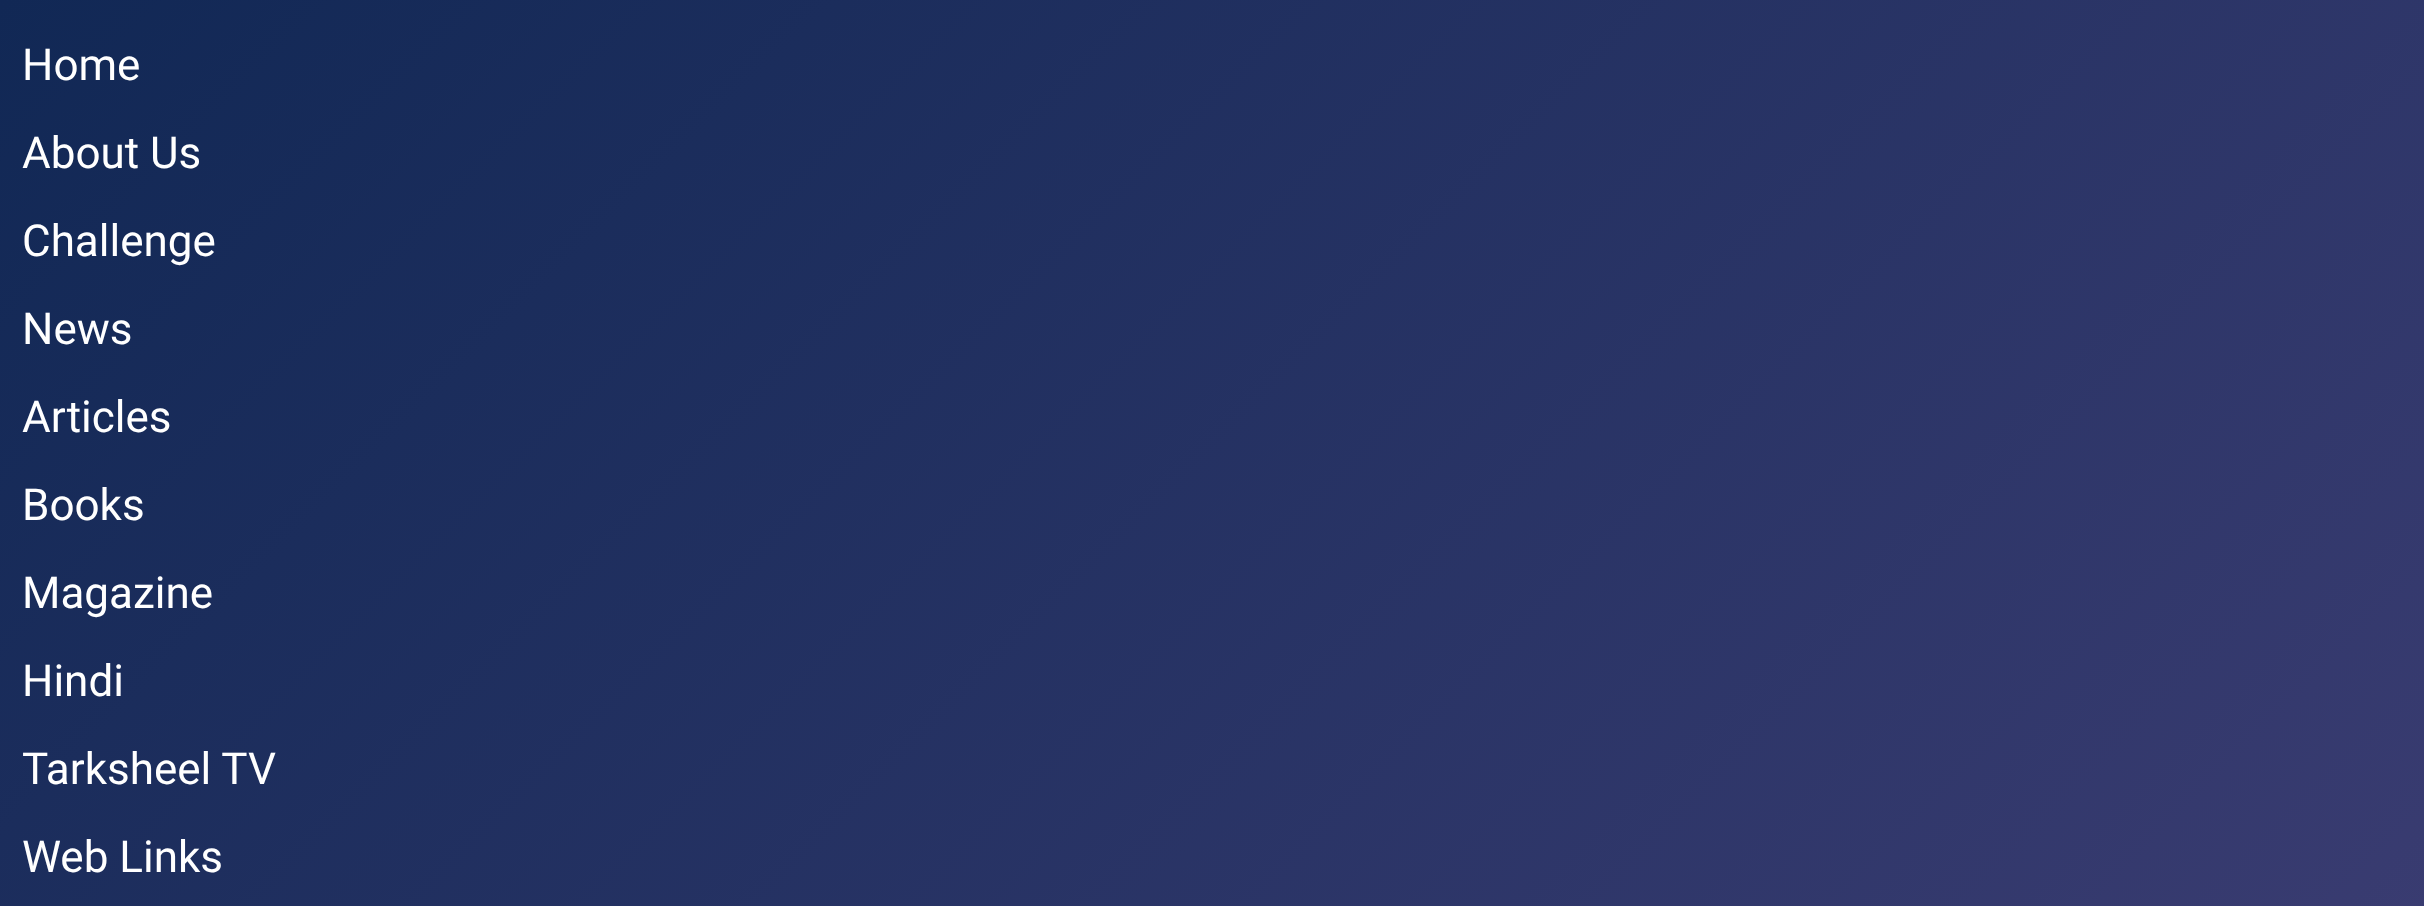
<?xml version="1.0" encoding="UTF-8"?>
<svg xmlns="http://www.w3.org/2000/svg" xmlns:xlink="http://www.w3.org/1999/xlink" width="2424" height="906">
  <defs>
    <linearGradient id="g1" gradientUnits="userSpaceOnUse" x1="192" y1="-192" x2="2234" y2="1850"><stop offset="0" stop-color="#112855" /><stop offset="1" stop-color="#424077" /></linearGradient>
  </defs>
  <rect width="100%" height="100%" fill="#ffffff" />
  <rect width="2424" height="906" fill="url(#g1)" />
  <text x="22" y="80" style="font-family: Roboto; font-size: 44px; fill: #ffffff">Home</text>
  <text x="22" y="168" style="font-family: Roboto; font-size: 44px; fill: #ffffff">About Us</text>
  <text x="22" y="256" style="font-family: Roboto; font-size: 44px; fill: #ffffff">Challenge</text>
  <text x="22" y="344" style="font-family: Roboto; font-size: 44px; fill: #ffffff">News</text>
  <text x="22" y="432" style="font-family: Roboto; font-size: 44px; fill: #ffffff">Articles</text>
  <text x="22" y="520" style="font-family: Roboto; font-size: 44px; fill: #ffffff">Books</text>
  <text x="22" y="608" style="font-family: Roboto; font-size: 44px; fill: #ffffff">Magazine</text>
  <text x="22" y="696" style="font-family: Roboto; font-size: 44px; fill: #ffffff">Hindi</text>
  <text x="22" y="784" style="font-family: Roboto; font-size: 44px; fill: #ffffff">Tarksheel TV</text>
  <text x="22" y="872" style="font-family: Roboto; font-size: 44px; fill: #ffffff">Web Links</text>
</svg>
